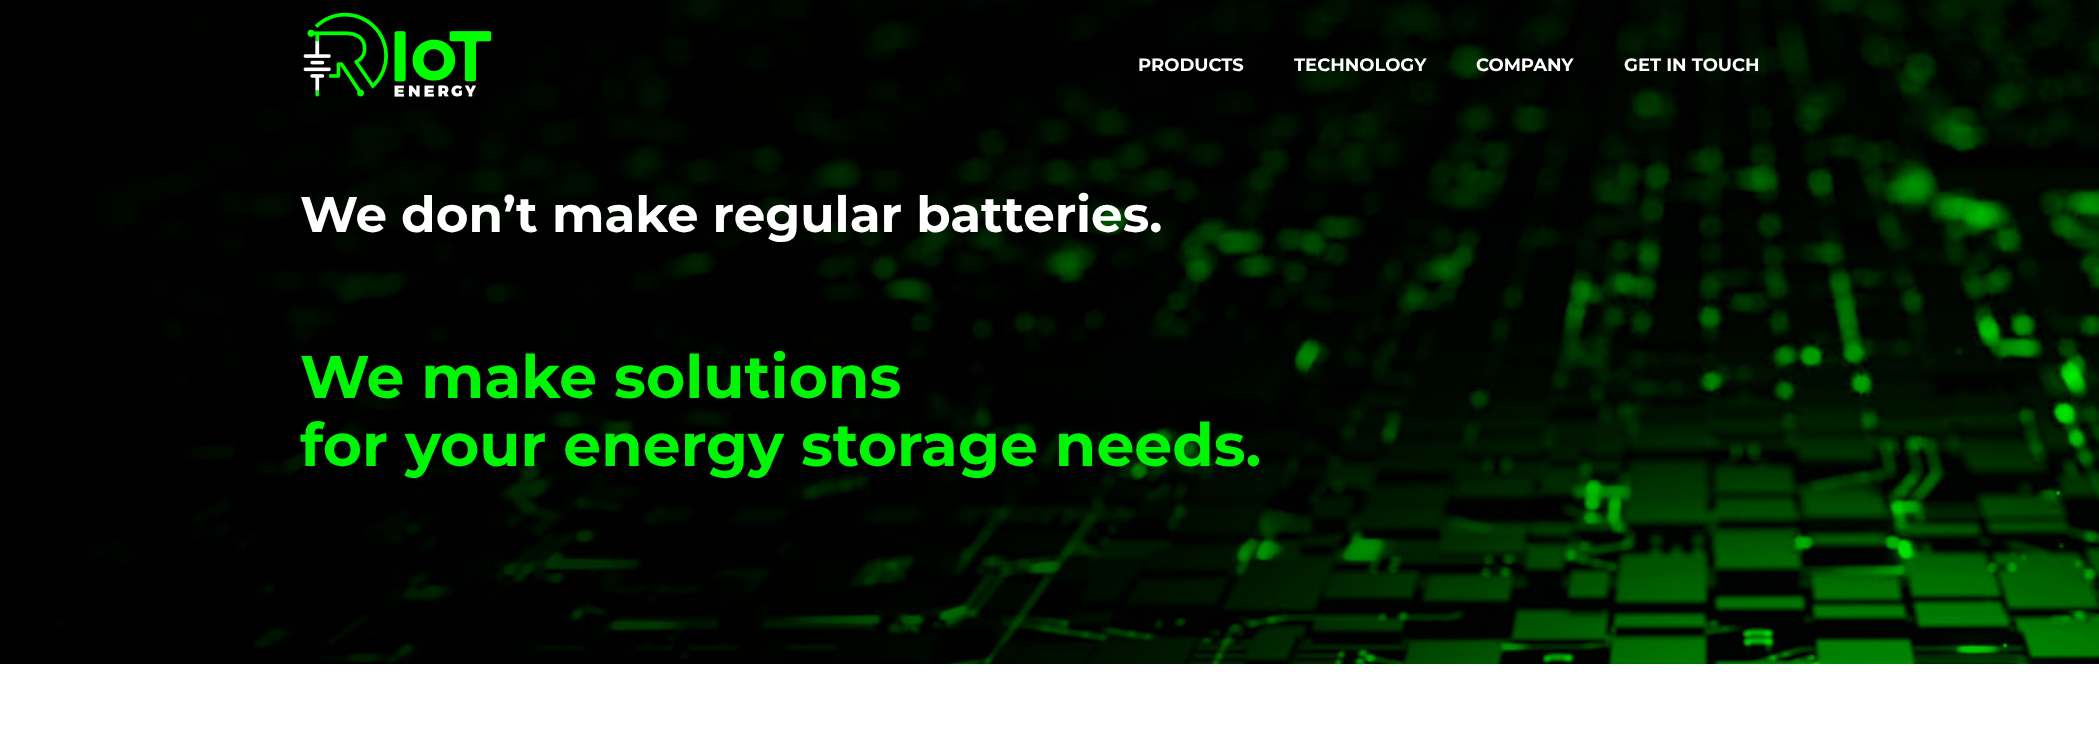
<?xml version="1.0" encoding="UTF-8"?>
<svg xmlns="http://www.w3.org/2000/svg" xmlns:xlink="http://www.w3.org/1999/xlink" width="2099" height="738">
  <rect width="100%" height="100%" fill="#ffffff" />
  <image x="0" y="0" width="2099" height="664" xlink:href="image1.png" />
  <image x="303" y="12" width="189" height="85" xlink:href="image2.png" />
  <text x="1138" y="71" style="font-family: Montserrat; font-size: 18px; font-weight: bold; fill: #ffffff">PRODUCTS</text>
  <text x="1294" y="71" style="font-family: Montserrat; font-size: 18px; font-weight: bold; fill: #ffffff">TECHNOLOGY</text>
  <text x="1476" y="71" style="font-family: Montserrat; font-size: 18px; font-weight: bold; fill: #ffffff">COMPANY</text>
  <text x="1624" y="71" style="font-family: Montserrat; font-size: 18px; font-weight: bold; fill: #ffffff">GET IN TOUCH</text>
  <text x="300" y="232" style="font-family: Montserrat; font-size: 50px; font-weight: bold; fill: #ffffff">We don’t make regular batteries.</text>
  <text x="300" y="398" style="font-family: Montserrat; font-size: 60px; font-weight: bold; fill: #00f506">We make solutions</text>
  <text x="300" y="466" style="font-family: Montserrat; font-size: 60px; font-weight: bold; fill: #00f506">for your energy storage needs.</text>
</svg>
